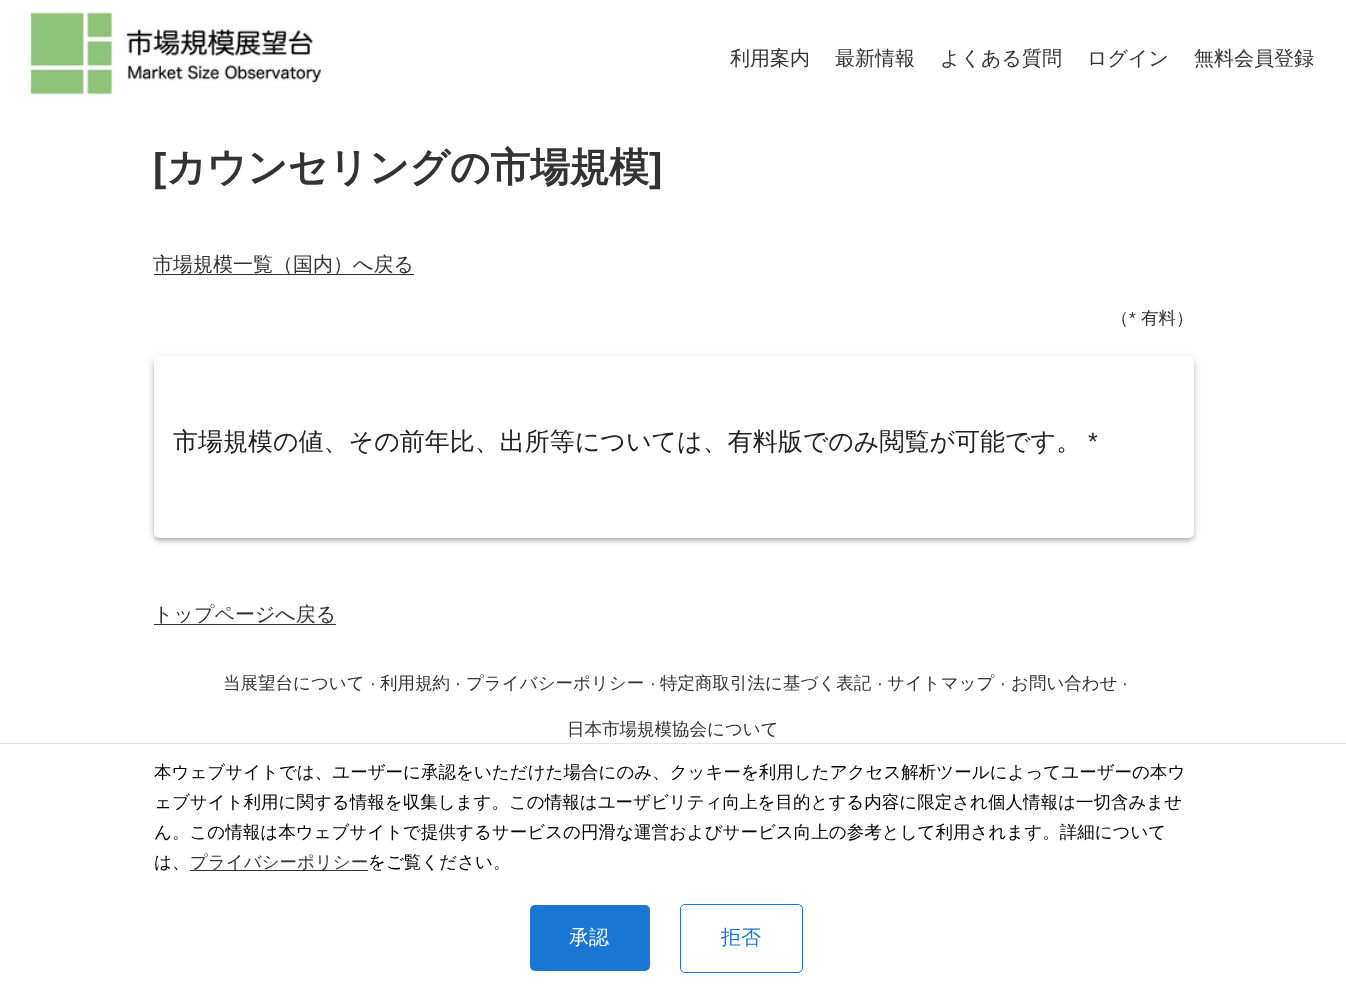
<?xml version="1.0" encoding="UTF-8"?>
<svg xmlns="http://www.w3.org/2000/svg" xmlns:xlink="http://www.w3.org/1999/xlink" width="1346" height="1002">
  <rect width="100%" height="100%" fill="#ffffff" />
  <image x="28" y="11" width="294" height="85" xlink:href="image1.png" />
  <rect x="154" y="274" width="260" height="1" fill="#333333" />
  <rect x="154" y="358" width="1040" height="181" rx="5" fill="#000000" fill-opacity="0.12" filter="blur(5px)" />
  <rect x="154" y="360" width="1040" height="181" rx="5" fill="#000000" fill-opacity="0.14" filter="blur(2.5px)" />
  <rect x="156" y="363" width="1035" height="176" rx="2.5" fill="#000000" fill-opacity="0.2" filter="blur(2px)" />
  <rect x="154" y="356" width="1040" height="182" rx="5" fill="#ffffff" />
  <rect x="154" y="624" width="182" height="1" fill="#333333" />
  <rect y="743" width="1346" height="1" fill="#e0e3e7" />
  <rect x="190" y="870" width="178" height="1" fill="#333333" />
  <rect x="530" y="905" width="120" height="66" rx="5" fill="#1976d2" />
  <rect x="680.5" y="904.5" width="122" height="68" rx="4.5" fill="none" stroke="#1976d2" />
  <text x="730" y="65" style="font-family: WenQuanYi Zen Hei; font-size: 20px; font-weight: 500; fill: #333333">利用案内</text>
  <text x="835" y="65" style="font-family: WenQuanYi Zen Hei; font-size: 20px; font-weight: 500; fill: #333333">最新情報</text>
  <text x="940" y="65" style="font-family: WenQuanYi Zen Hei; font-size: 20px; font-weight: 500; fill: #333333">よくある質問</text>
  <text x="1087" y="65" style="font-family: WenQuanYi Zen Hei; font-size: 20px; font-weight: 500; fill: #333333">ログイン</text>
  <text x="1194" y="65" style="font-family: WenQuanYi Zen Hei; font-size: 20px; font-weight: 500; fill: #333333">無料会員登録</text>
  <text x="153" y="181" style="font-family: Liberation Sans; font-size: 40px; font-weight: bold; letter-spacing: -0.4px; fill: #333333">[</text>
  <text x="166" y="181" style="font-family: WenQuanYi Zen Hei; font-size: 40px; font-weight: bold; letter-spacing: -0.4px; fill: #333333">カウンセリングの市場規模</text>
  <text x="649" y="181" style="font-family: Liberation Sans; font-size: 40px; font-weight: bold; letter-spacing: -0.4px; fill: #333333">]</text>
  <text x="153" y="271" style="font-family: WenQuanYi Zen Hei; font-size: 20px; font-weight: 500; fill: #333333">市場規模一覧（国内）へ戻る</text>
  <text x="1111" y="324" style="font-family: WenQuanYi Zen Hei; font-size: 17.5px; font-weight: 500; fill: #333333">（</text>
  <text x="1129" y="324" style="font-family: Liberation Sans; font-size: 17.5px; fill: #333333">*</text>
  <text x="1141" y="324" style="font-family: WenQuanYi Zen Hei; font-size: 17.5px; font-weight: 500; fill: #333333">有料）</text>
  <text x="173" y="450" style="font-family: WenQuanYi Zen Hei; font-size: 25px; font-weight: 500; fill: #212121">市場規模の値、その前年比、出所等については、有料版でのみ閲覧が可能です。</text>
  <text x="1088" y="450" style="font-family: Liberation Sans; font-size: 25px; fill: #212121">*</text>
  <text x="153" y="621" style="font-family: WenQuanYi Zen Hei; font-size: 20px; font-weight: 500; fill: #333333">トップページへ戻る</text>
  <text x="223" y="689" style="font-family: WenQuanYi Zen Hei; font-size: 17.5px; font-weight: 500; fill: #333333">当展望台について</text>
  <text x="370" y="689" style="font-family: Liberation Sans; font-size: 17.5px; fill: #333333">·</text>
  <text x="380" y="689" style="font-family: WenQuanYi Zen Hei; font-size: 17.5px; font-weight: 500; fill: #333333">利用規約</text>
  <text x="455" y="689" style="font-family: Liberation Sans; font-size: 17.5px; fill: #333333">·</text>
  <text x="466" y="689" style="font-family: WenQuanYi Zen Hei; font-size: 17.5px; font-weight: 500; fill: #333333">プライバシーポリシー</text>
  <text x="650" y="689" style="font-family: Liberation Sans; font-size: 17.5px; fill: #333333">·</text>
  <text x="660" y="689" style="font-family: WenQuanYi Zen Hei; font-size: 17.5px; font-weight: 500; fill: #333333">特定商取引法に基づく表記</text>
  <text x="877" y="689" style="font-family: Liberation Sans; font-size: 17.5px; fill: #333333">·</text>
  <text x="887" y="689" style="font-family: WenQuanYi Zen Hei; font-size: 17.5px; font-weight: 500; fill: #333333">サイトマップ</text>
  <text x="1000" y="689" style="font-family: Liberation Sans; font-size: 17.5px; fill: #333333">·</text>
  <text x="1011" y="689" style="font-family: WenQuanYi Zen Hei; font-size: 17.5px; font-weight: 500; fill: #333333">お問い合わせ</text>
  <text x="1122" y="689" style="font-family: Liberation Sans; font-size: 17.5px; fill: #333333">·</text>
  <text x="567" y="735" style="font-family: WenQuanYi Zen Hei; font-size: 17.5px; font-weight: 500; fill: #333333">日本市場規模協会について</text>
  <text x="154" y="778" style="font-family: WenQuanYi Zen Hei; font-size: 17.5px; font-weight: 500; fill: #000000">本ウェブサイトでは、ユーザーに承認をいただけた場合にのみ、クッキーを利用したアクセス解析ツールによってユーザーの本ウ</text>
  <text x="154" y="808" style="font-family: WenQuanYi Zen Hei; font-size: 17.5px; font-weight: 500; fill: #000000">ェブサイト利用に関する情報を収集します。この情報はユーザビリティ向上を目的とする内容に限定され個人情報は一切含みませ</text>
  <text x="154" y="838" style="font-family: WenQuanYi Zen Hei; font-size: 17.5px; font-weight: 500; fill: #000000">ん。この情報は本ウェブサイトで提供するサービスの円滑な運営およびサービス向上の参考として利用されます。詳細について</text>
  <text x="154" y="868" style="font-family: WenQuanYi Zen Hei; font-size: 17.5px; font-weight: 500; fill: #000000">は、</text>
  <text x="190" y="868" style="font-family: WenQuanYi Zen Hei; font-size: 17.5px; font-weight: 500; fill: #333333">プライバシーポリシー</text>
  <text x="368" y="868" style="font-family: WenQuanYi Zen Hei; font-size: 17.5px; font-weight: 500; fill: #000000">をご覧ください。</text>
  <text x="569" y="944" style="font-family: WenQuanYi Zen Hei; font-size: 20px; font-weight: 500; fill: #ffffff">承認</text>
  <text x="721" y="944" style="font-family: WenQuanYi Zen Hei; font-size: 20px; font-weight: 500; fill: #1976d2">拒否</text>
</svg>
